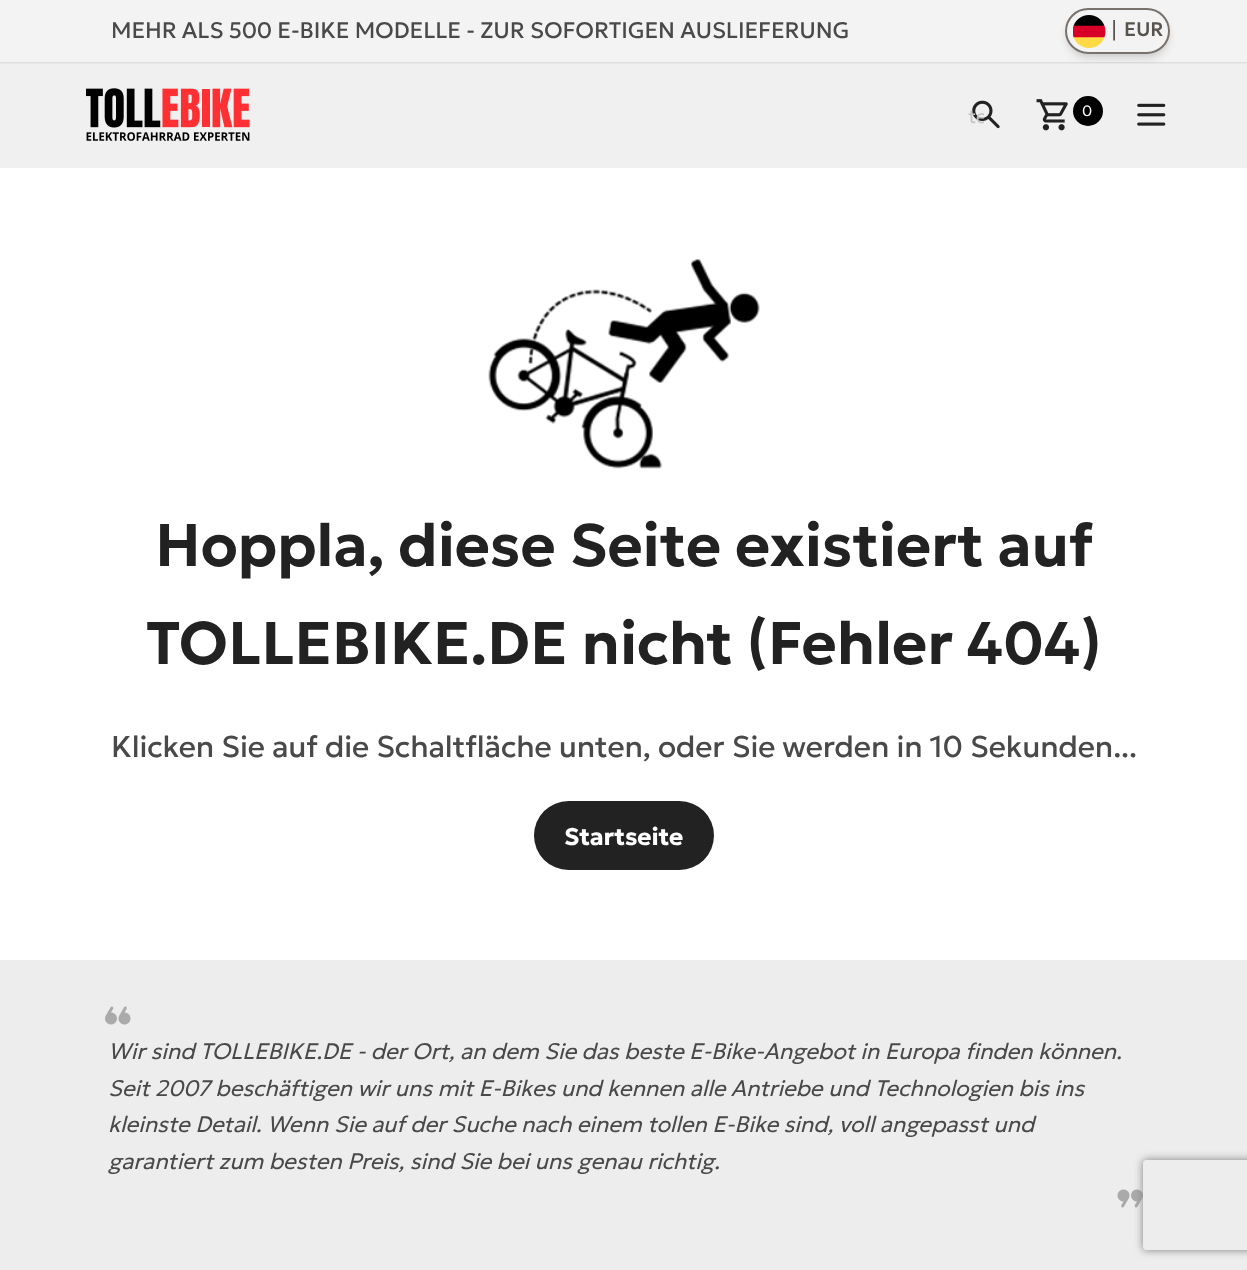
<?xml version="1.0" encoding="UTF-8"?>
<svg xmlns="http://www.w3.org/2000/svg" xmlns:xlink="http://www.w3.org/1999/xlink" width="1247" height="1270">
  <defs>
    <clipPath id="clip1"><path d="M 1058 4 h 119 v 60 h -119 z m 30 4 h 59 c 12.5 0 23 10.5 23 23 c 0 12.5 -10.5 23 -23 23 h -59 c -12.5 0 -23 -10.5 -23 -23 c 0 -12.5 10.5 -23 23 -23 z" clip-rule="evenodd" /></clipPath>
    <clipPath id="clip2"><path d="M 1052 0 h 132 v 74 h -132 z m 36 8 h 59 c 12.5 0 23 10.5 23 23 c 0 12.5 -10.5 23 -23 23 h -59 c -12.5 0 -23 -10.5 -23 -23 c 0 -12.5 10.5 -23 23 -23 z" clip-rule="evenodd" /></clipPath>
    <clipPath id="clip3"><path d="M 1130 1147 h 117 v 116 h -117 z m 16 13 h 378 c 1.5 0 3 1.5 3 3 v 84 c 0 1.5 -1.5 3 -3 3 h -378 c -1.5 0 -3 -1.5 -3 -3 v -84 c 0 -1.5 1.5 -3 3 -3 z" clip-rule="evenodd" /></clipPath>
    <clipPath id="clip4"><rect x="968" y="104" width="16" height="25" /></clipPath>
  </defs>
  <rect width="100%" height="100%" fill="#ffffff" />
  <rect width="1247" height="62" fill="#f3f3f3" />
  <rect y="62" width="1247" height="2" fill="#dedede" />
  <g clip-path="url(#clip1)">
    <rect x="1068" y="14" width="99" height="40" rx="20" fill="#000000" fill-opacity="0.1" filter="blur(3px)" />
  </g>
  <g clip-path="url(#clip2)">
    <rect x="1067" y="15" width="102" height="44" rx="22" fill="#000000" fill-opacity="0.1" filter="blur(4.5px)" />
  </g>
  <rect x="1066" y="9" width="103" height="44" rx="22" fill="none" stroke="#78716c" stroke-width="2" />
  <image x="1073" y="15" width="33" height="33" xlink:href="image1.png" />
  <rect y="63" width="1247" height="105" fill="#ebebeb" fill-opacity="0.75" />
  <image x="86" y="88" width="164" height="53" xlink:href="image2.png" />
  <image x="972" y="100" width="28" height="29" xlink:href="image3.png" />
  <image x="1036" y="99" width="32" height="32" xlink:href="image4.png" />
  <circle cx="1088" cy="111" r="15" fill="#000000" />
  <image x="1137" y="103" width="29" height="23" xlink:href="image5.png" />
  <image x="488" y="259" width="272" height="210" xlink:href="image6.png" />
  <rect x="534" y="801" width="180" height="69" rx="34.5" fill="#222222" />
  <rect y="960" width="1247" height="310" fill="#ededed" />
  <image x="105" y="1006" width="26" height="19" xlink:href="image7.png" />
  <image x="1117" y="1189" width="26" height="19" xlink:href="image8.png" />
  <g clip-path="url(#clip3)">
    <rect x="1143" y="1160" width="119" height="90" rx="3" fill="#808080" filter="blur(4px)" />
  </g>
  <text x="111" y="38" style="font-family: Geologica; font-size: 22.5px; letter-spacing: -0.15px; fill: #494949">MEHR ALS 500 E-BIKE MODELLE - ZUR SOFORTIGEN AUSLIEFERUNG</text>
  <text x="1111" y="38" style="font-family: Geologica; font-size: 22.5px; font-weight: 300; letter-spacing: -0.15px; fill: #57534e">|</text>
  <text x="1124" y="36" style="font-family: Geologica; font-size: 19.5px; font-weight: 500; letter-spacing: -0.15px; fill: #57534e">EUR</text>
  <g clip-path="url(#clip4)">
    <text x="968" y="123" style="font-family: Geologica; font-size: 19.5px; font-weight: 300; letter-spacing: -0.15px; fill: #c4c4c4">te</text>
  </g>
  <text x="1082" y="116" style="font-family: Geologica; font-size: 15px; font-weight: 300; letter-spacing: -0.15px; fill: #ffffff">0</text>
  <text x="155" y="566" style="font-family: Geologica; font-size: 60px; font-weight: 600; letter-spacing: -0.15px; fill: #222222">Hoppla, diese Seite existiert auf</text>
  <text x="146" y="664" style="font-family: Geologica; font-size: 60px; font-weight: 600; letter-spacing: -0.15px; fill: #222222">TOLLEBIKE.DE nicht (Fehler 404)</text>
  <text x="111" y="757" style="font-family: Geologica; font-size: 30px; letter-spacing: -0.15px; fill: #494949">Klicken Sie auf die Schaltfläche unten, oder Sie werden in 10 Sekunden...</text>
  <text x="564" y="845" style="font-family: Geologica; font-size: 24px; font-weight: bold; letter-spacing: -0.15px; fill: #ffffff">Startseite</text>
  <text x="108" y="1059" style="font-family: Geologica; font-size: 22.5px; font-weight: 300; font-style: italic; letter-spacing: -0.15px; fill: #494949">Wir sind TOLLEBIKE.DE - der Ort, an dem Sie das beste E-Bike-Angebot in Europa finden können.</text>
  <text x="108" y="1096" style="font-family: Geologica; font-size: 22.5px; font-weight: 300; font-style: italic; letter-spacing: -0.15px; fill: #494949">Seit 2007 beschäftigen wir uns mit E-Bikes und kennen alle Antriebe und Technologien bis ins</text>
  <text x="108" y="1132" style="font-family: Geologica; font-size: 22.5px; font-weight: 300; font-style: italic; letter-spacing: -0.15px; fill: #494949">kleinste Detail. Wenn Sie auf der Suche nach einem tollen E-Bike sind, voll angepasst und</text>
  <text x="108" y="1169" style="font-family: Geologica; font-size: 22.5px; font-weight: 300; font-style: italic; letter-spacing: -0.15px; fill: #494949">garantiert zum besten Preis, sind Sie bei uns genau richtig.</text>
</svg>
